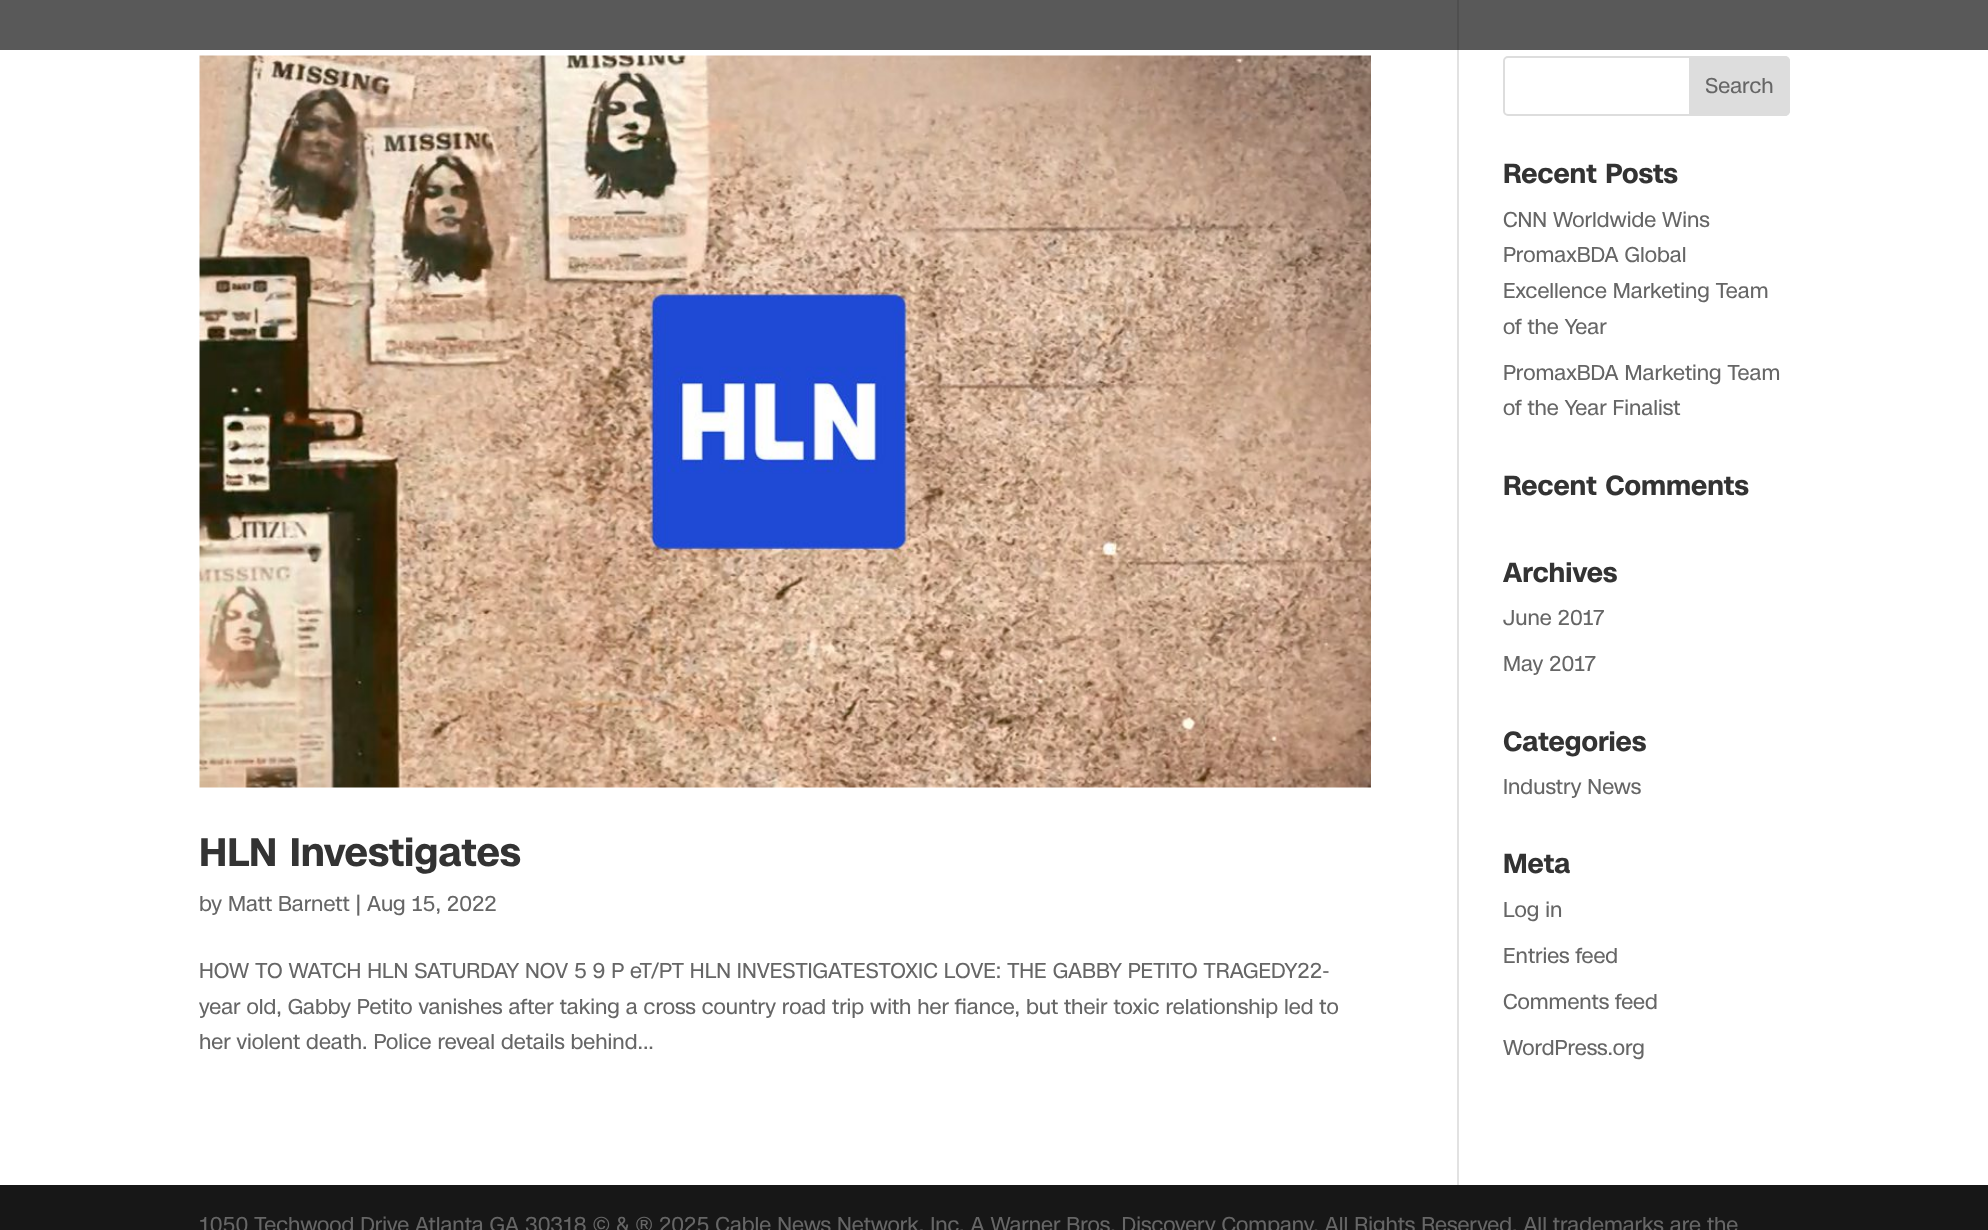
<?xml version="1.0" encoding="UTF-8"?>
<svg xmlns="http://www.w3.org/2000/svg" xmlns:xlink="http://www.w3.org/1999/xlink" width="1988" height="1230">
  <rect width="100%" height="100%" fill="#ffffff" />
  <rect width="1988" height="50" fill="#595959" />
  <rect x="1457" y="50" width="2" height="1135" fill="#e2e2e2" />
  <rect x="1457" width="2" height="50" fill="#4f4f4f" />
  <image x="199" y="55" width="1172" height="733" xlink:href="image1.png" />
  <rect x="1504" y="57" width="285" height="58" rx="4" fill="none" stroke="#dddddd" stroke-width="2" />
  <path d="M 1690 57 h 95 c 2 0 4 2 4 4 v 50 c 0 2 -2 4 -4 4 h -95 z" fill="#dddddd" stroke="#dddddd" stroke-width="2" />
  <rect y="1185" width="1988" height="45" fill="#171717" />
  <text x="199" y="866" style="font-family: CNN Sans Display; font-size: 39px; font-weight: bold; fill: #333333">HLN Investigates</text>
  <text x="199" y="911" style="font-family: CNN Sans Display; font-size: 21px; fill: #666666">by Matt Barnett | Aug 15, 2022</text>
  <text x="199" y="978" style="font-family: CNN Sans Display; font-size: 21px; fill: #666666">HOW TO WATCH HLN SATURDAY NOV 5 9 P eT/PT HLN INVESTIGATESTOXIC LOVE: THE GABBY PETITO TRAGEDY22-</text>
  <text x="199" y="1014" style="font-family: CNN Sans Display; font-size: 21px; fill: #666666">year old, Gabby Petito vanishes after taking a cross country road trip with her fiance, but their toxic relationship led to</text>
  <text x="199" y="1049" style="font-family: CNN Sans Display; font-size: 21px; fill: #666666">her violent death. Police reveal details behind...</text>
  <text x="1705" y="93" style="font-family: CNN Sans Display; font-size: 21px; fill: #666666">Search</text>
  <text x="1503" y="183" style="font-family: CNN Sans Display; font-size: 27px; font-weight: bold; fill: #333333">Recent Posts</text>
  <text x="1503" y="227" style="font-family: CNN Sans Display; font-size: 21px; fill: #666666">CNN Worldwide Wins</text>
  <text x="1503" y="262" style="font-family: CNN Sans Display; font-size: 21px; fill: #666666">PromaxBDA Global</text>
  <text x="1503" y="298" style="font-family: CNN Sans Display; font-size: 21px; fill: #666666">Excellence Marketing Team</text>
  <text x="1503" y="334" style="font-family: CNN Sans Display; font-size: 21px; fill: #666666">of the Year</text>
  <text x="1503" y="380" style="font-family: CNN Sans Display; font-size: 21px; fill: #666666">PromaxBDA Marketing Team</text>
  <text x="1503" y="415" style="font-family: CNN Sans Display; font-size: 21px; fill: #666666">of the Year Finalist</text>
  <text x="1503" y="495" style="font-family: CNN Sans Display; font-size: 27px; font-weight: bold; fill: #333333">Recent Comments</text>
  <text x="1503" y="582" style="font-family: CNN Sans Display; font-size: 27px; font-weight: bold; fill: #333333">Archives</text>
  <text x="1503" y="625" style="font-family: CNN Sans Display; font-size: 21px; fill: #666666">June 2017</text>
  <text x="1503" y="671" style="font-family: CNN Sans Display; font-size: 21px; fill: #666666">May 2017</text>
  <text x="1503" y="751" style="font-family: CNN Sans Display; font-size: 27px; font-weight: bold; fill: #333333">Categories</text>
  <text x="1503" y="794" style="font-family: CNN Sans Display; font-size: 21px; fill: #666666">Industry News</text>
  <text x="1503" y="873" style="font-family: CNN Sans Display; font-size: 27px; font-weight: bold; fill: #333333">Meta</text>
  <text x="1503" y="917" style="font-family: CNN Sans Display; font-size: 21px; fill: #666666">Log in</text>
  <text x="1503" y="963" style="font-family: CNN Sans Display; font-size: 21px; fill: #666666">Entries feed</text>
  <text x="1503" y="1009" style="font-family: CNN Sans Display; font-size: 21px; fill: #666666">Comments feed</text>
  <text x="1503" y="1055" style="font-family: CNN Sans Display; font-size: 21px; fill: #666666">WordPress.org</text>
  <text x="199" y="1232" style="font-family: CNN Sans Display; font-size: 21px; fill: #666666">1050 Techwood Drive Atlanta GA 30318 © &amp; ® 2025 Cable News Network, Inc. A Warner Bros. Discovery Company. All Rights Reserved. All trademarks are the</text>
</svg>
